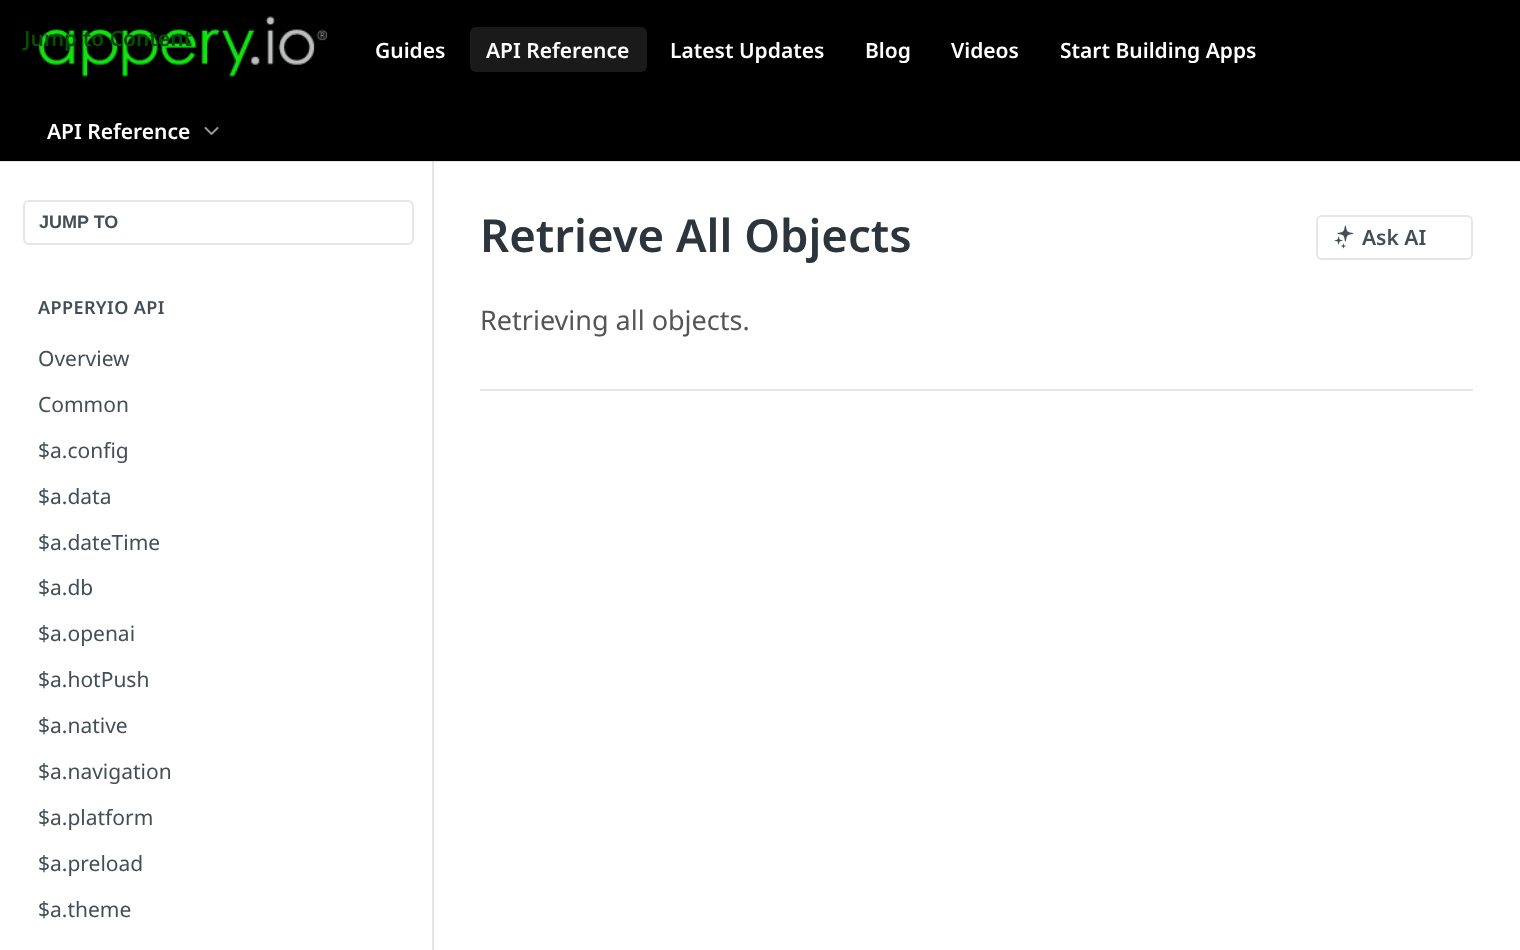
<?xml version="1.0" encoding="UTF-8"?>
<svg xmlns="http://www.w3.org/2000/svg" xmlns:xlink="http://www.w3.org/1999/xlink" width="1520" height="950">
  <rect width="100%" height="100%" fill="#ffffff" />
  <path d="M 2 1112 h 432 v -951 h -2 v 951 z" fill="#e6e6e6" />
  <rect y="161" width="1520" height="1" fill="#000000" fill-opacity="0.1" />
  <rect width="1520" height="161" fill="#000000" />
  <image x="39" y="16" width="288" height="61" xlink:href="image1.png" />
  <rect x="470" y="27" width="177" height="45" rx="6" fill="#1a1a1a" />
  <image x="204" y="127" width="15" height="8" xlink:href="image2.png" />
  <rect x="24" y="201" width="389" height="43" rx="5" fill="none" stroke="#e6e6e6" stroke-width="2" />
  <rect x="480" y="389" width="993" height="2" fill="#e6e6e6" />
  <rect x="1317" y="216" width="155" height="43" rx="5" fill="none" stroke="#e6e6e6" stroke-width="2" />
  <image x="1334" y="225" width="20" height="24" xlink:href="image3.png" />
  <text x="24" y="46" style="font-family: Noto Sans; font-size: 21px; font-weight: 600; fill: #064d06">Jump to Content</text>
  <text x="375" y="58" style="font-family: Noto Sans; font-size: 21px; font-weight: 600; fill: #ffffff">Guides</text>
  <text x="486" y="58" style="font-family: Noto Sans; font-size: 21px; font-weight: 600; fill: #ffffff">API Reference</text>
  <text x="670" y="58" style="font-family: Noto Sans; font-size: 21px; font-weight: 600; fill: #ffffff">Latest Updates</text>
  <text x="865" y="58" style="font-family: Noto Sans; font-size: 21px; font-weight: 600; fill: #ffffff">Blog</text>
  <text x="951" y="58" style="font-family: Noto Sans; font-size: 21px; font-weight: 600; fill: #ffffff">Videos</text>
  <text x="1060" y="58" style="font-family: Noto Sans; font-size: 21px; font-weight: 600; fill: #ffffff">Start Building Apps</text>
  <text x="47" y="139" style="font-family: Noto Sans; font-size: 21px; font-weight: 600; fill: #ffffff">API Reference</text>
  <text x="39" y="228" style="font-family: Liberation Sans; font-size: 18px; font-weight: bold; fill: #434e56">JUMP TO</text>
  <text x="38" y="314" style="font-family: Noto Sans; font-size: 18px; font-weight: 600; letter-spacing: 0.4px; fill: #434e56">APPERYIO API</text>
  <text x="38" y="366" style="font-family: Noto Sans; font-size: 21px; fill: #434e56">Overview</text>
  <text x="38" y="412" style="font-family: Noto Sans; font-size: 21px; fill: #434e56">Common</text>
  <text x="38" y="458" style="font-family: Noto Sans; font-size: 21px; fill: #434e56">$a.config</text>
  <text x="38" y="504" style="font-family: Noto Sans; font-size: 21px; fill: #434e56">$a.data</text>
  <text x="38" y="550" style="font-family: Noto Sans; font-size: 21px; fill: #434e56">$a.dateTime</text>
  <text x="38" y="595" style="font-family: Noto Sans; font-size: 21px; fill: #434e56">$a.db</text>
  <text x="38" y="641" style="font-family: Noto Sans; font-size: 21px; fill: #434e56">$a.openai</text>
  <text x="38" y="687" style="font-family: Noto Sans; font-size: 21px; fill: #434e56">$a.hotPush</text>
  <text x="38" y="733" style="font-family: Noto Sans; font-size: 21px; fill: #434e56">$a.native</text>
  <text x="38" y="779" style="font-family: Noto Sans; font-size: 21px; fill: #434e56">$a.navigation</text>
  <text x="38" y="825" style="font-family: Noto Sans; font-size: 21px; fill: #434e56">$a.platform</text>
  <text x="38" y="871" style="font-family: Noto Sans; font-size: 21px; fill: #434e56">$a.preload</text>
  <text x="38" y="917" style="font-family: Noto Sans; font-size: 21px; fill: #434e56">$a.theme</text>
  <text x="480" y="252" style="font-family: Noto Sans; font-size: 45.5px; font-weight: 600; fill: #2b353b">Retrieve All Objects</text>
  <text x="1362" y="245" style="font-family: Noto Sans; font-size: 21px; font-weight: 600; fill: #434e56">Ask AI</text>
  <text x="480" y="330" style="font-family: Noto Sans; font-size: 27px; fill: #555555">Retrieving all objects.</text>
</svg>
